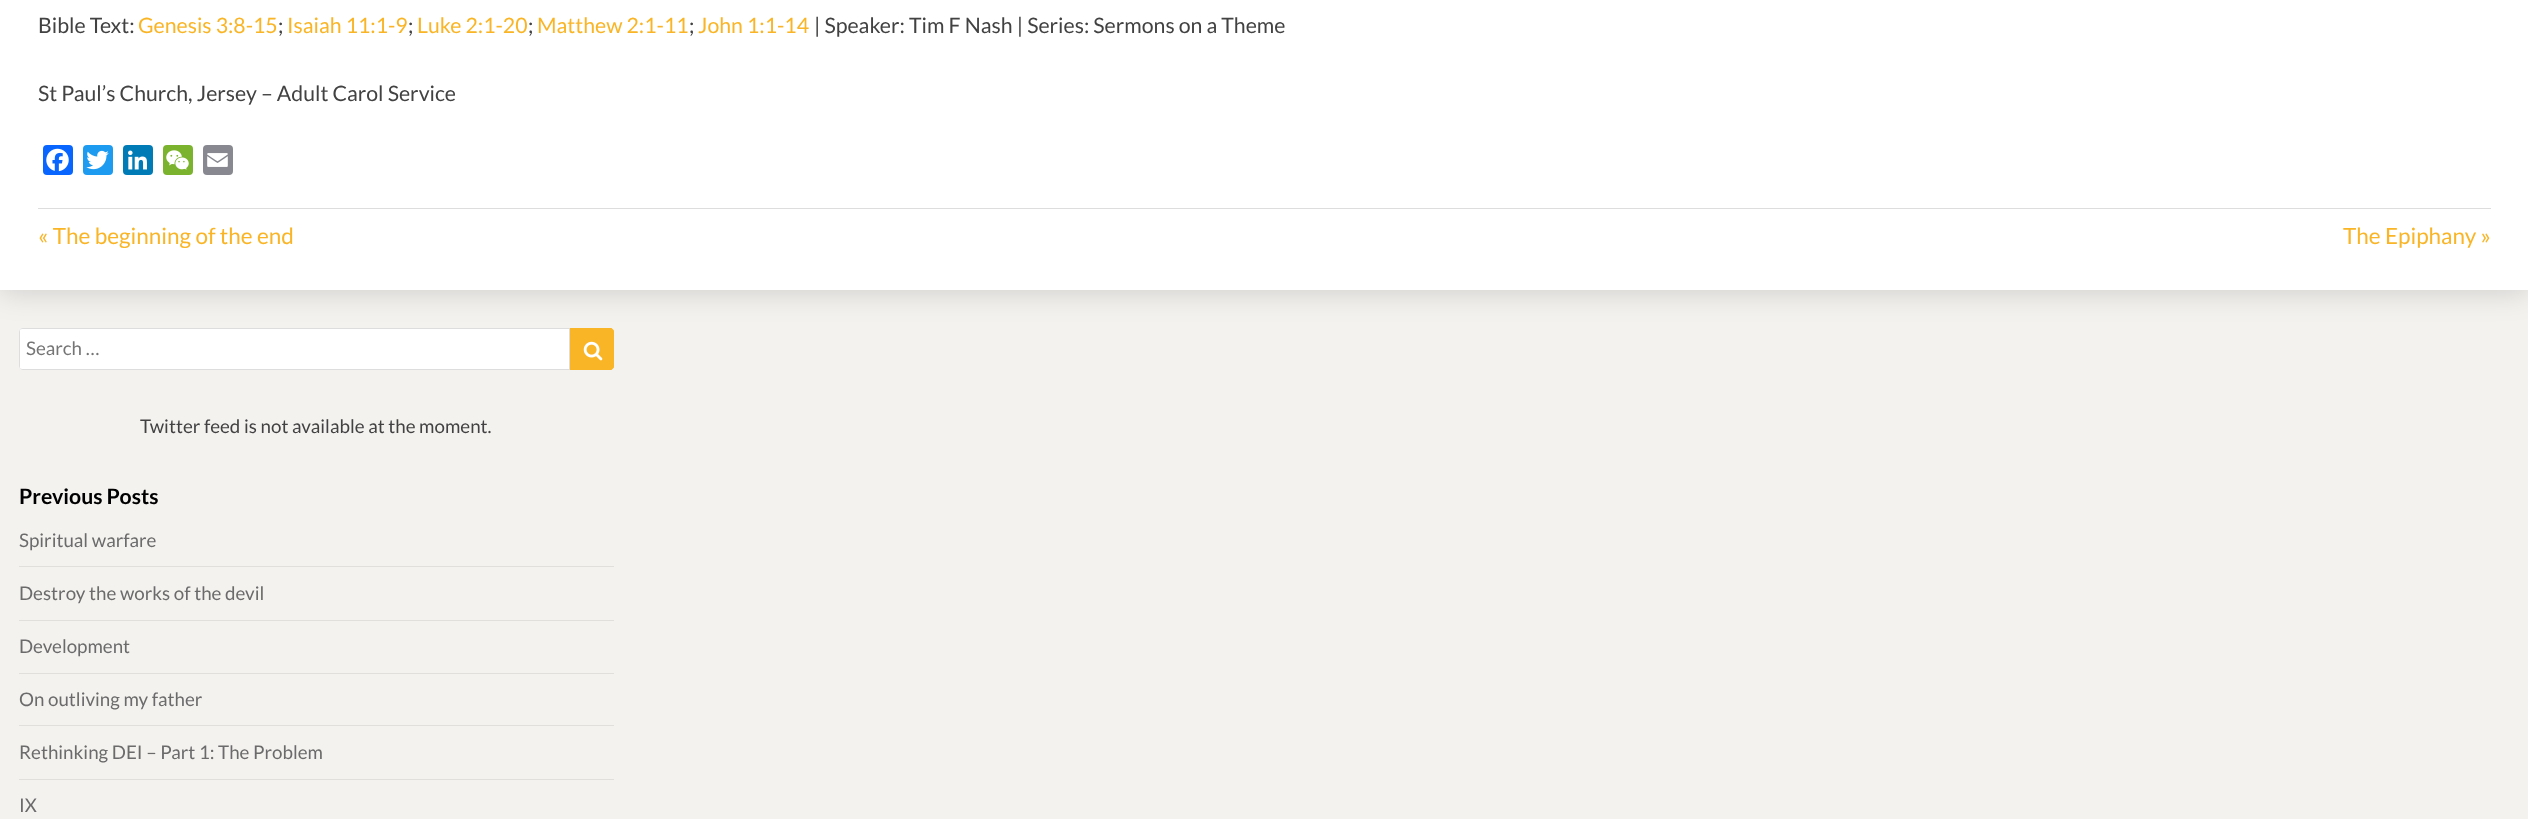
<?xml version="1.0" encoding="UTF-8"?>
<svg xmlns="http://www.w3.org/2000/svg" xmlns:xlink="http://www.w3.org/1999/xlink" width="2528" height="819">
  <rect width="100%" height="100%" fill="#f4f2ef" />
  <rect y="-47" width="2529" height="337" fill="#000000" fill-opacity="0.17" filter="blur(15.5px)" />
  <rect width="2528" height="290" fill="#ffffff" />
  <rect x="43" y="145" width="30" height="30" rx="4" fill="#0866ff" />
  <image x="46" y="148" width="23" height="24" xlink:href="image1.png" />
  <rect x="83" y="145" width="30" height="30" rx="4" fill="#1d9bf0" />
  <image x="86" y="150" width="23" height="20" xlink:href="image2.png" />
  <rect x="123" y="145" width="30" height="30" rx="4" fill="#007bb5" />
  <image x="128" y="150" width="19" height="20" xlink:href="image3.png" />
  <rect x="163" y="145" width="30" height="30" rx="4" fill="#7bb32e" />
  <image x="166" y="150" width="23" height="20" xlink:href="image4.png" />
  <rect x="203" y="145" width="30" height="30" rx="4" fill="#888990" />
  <image x="207" y="153" width="21" height="14" xlink:href="image5.png" />
  <rect x="38" y="208" width="2453" height="1" fill="#dddddd" />
  <path d="M 23 328 h 547 v 42 h -547 c -2 0 -4 -2 -4 -4 v -34 c 0 -2 2 -4 4 -4 z" fill="#ffffff" />
  <path d="M 23 328 c -2 0 -4 2 -4 4 v 34 c 0 2 2 4 4 4 h 547 v -42 z m -1 1 c -1 0 -2 1 -2 1 v 38 c 0 0 1 1 2 1 h 547 v -40 z" fill="#dddddd" fill-rule="evenodd" />
  <path d="M 570 328 h 40 c 2 0 4 2 4 4 v 34 c 0 2 -2 4 -4 4 h -40 z" fill="#fab526" />
  <path d="M 570 328 v 42 h 40 c 2 0 4 -2 4 -4 v -34 c 0 -2 -2 -4 -4 -4 z m 1 1 v 40 h 41 c 0 0 1 -1 1 -1 v -38 c 0 0 -1 -1 -1 -1 z" fill="#fab526" fill-rule="evenodd" />
  <image x="583" y="341" width="20" height="20" xlink:href="image6.png" />
  <rect x="19" y="566" width="595" height="1" fill="#e0dfdc" />
  <rect x="19" y="620" width="595" height="1" fill="#e0dfdc" />
  <rect x="19" y="673" width="595" height="1" fill="#e0dfdc" />
  <rect x="19" y="725" width="595" height="1" fill="#e0dfdc" />
  <rect x="19" y="779" width="595" height="1" fill="#e0dfdc" />
  <text x="38" y="33" style="font-family: Lato; font-size: 21.25px; fill: #424242">Bible Text:</text>
  <text x="138" y="33" style="font-family: Lato; font-size: 21.25px; fill: #fab526">Genesis 3:8-15</text>
  <text x="278" y="33" style="font-family: Lato; font-size: 21.25px; fill: #424242">;</text>
  <text x="287" y="33" style="font-family: Lato; font-size: 21.25px; fill: #fab526">Isaiah 11:1-9</text>
  <text x="408" y="33" style="font-family: Lato; font-size: 21.25px; fill: #424242">;</text>
  <text x="417" y="33" style="font-family: Lato; font-size: 21.25px; fill: #fab526">Luke 2:1-20</text>
  <text x="528" y="33" style="font-family: Lato; font-size: 21.25px; fill: #424242">;</text>
  <text x="537" y="33" style="font-family: Lato; font-size: 21.25px; fill: #fab526">Matthew 2:1-11</text>
  <text x="689" y="33" style="font-family: Lato; font-size: 21.25px; fill: #424242">;</text>
  <text x="698" y="33" style="font-family: Lato; font-size: 21.25px; fill: #fab526">John 1:1-14</text>
  <text x="814" y="33" style="font-family: Lato; font-size: 21.25px; fill: #424242">| Speaker: Tim F Nash | Series: Sermons on a Theme</text>
  <text x="38" y="101" style="font-family: Lato; font-size: 21.25px; fill: #424242">St Paul’s Church, Jersey – Adult Carol Service</text>
  <text x="38" y="244" style="font-family: Lato; font-size: 22.5px; fill: #fab526">« The beginning of the end</text>
  <text x="2343" y="244" style="font-family: Lato; font-size: 22.5px; fill: #fab526">The Epiphany »</text>
  <text x="26" y="355" style="font-family: Lato; font-size: 18.75px; fill: #757575">Search …</text>
  <text x="140" y="433" style="font-family: Lato; font-size: 18.75px; fill: #424242">Twitter feed is not available at the moment.</text>
  <text x="19" y="504" style="font-family: Lato; font-size: 21.25px; font-weight: bold; fill: #000000">Previous Posts</text>
  <text x="19" y="547" style="font-family: Lato; font-size: 18.75px; fill: #6b6b6b">Spiritual warfare</text>
  <text x="19" y="600" style="font-family: Lato; font-size: 18.75px; fill: #6b6b6b">Destroy the works of the devil</text>
  <text x="19" y="653" style="font-family: Lato; font-size: 18.75px; fill: #6b6b6b">Development</text>
  <text x="19" y="706" style="font-family: Lato; font-size: 18.75px; fill: #6b6b6b">On outliving my father</text>
  <text x="19" y="759" style="font-family: Lato; font-size: 18.75px; fill: #6b6b6b">Rethinking DEI – Part 1: The Problem</text>
  <text x="19" y="812" style="font-family: Lato; font-size: 18.75px; fill: #6b6b6b">IX</text>
</svg>
